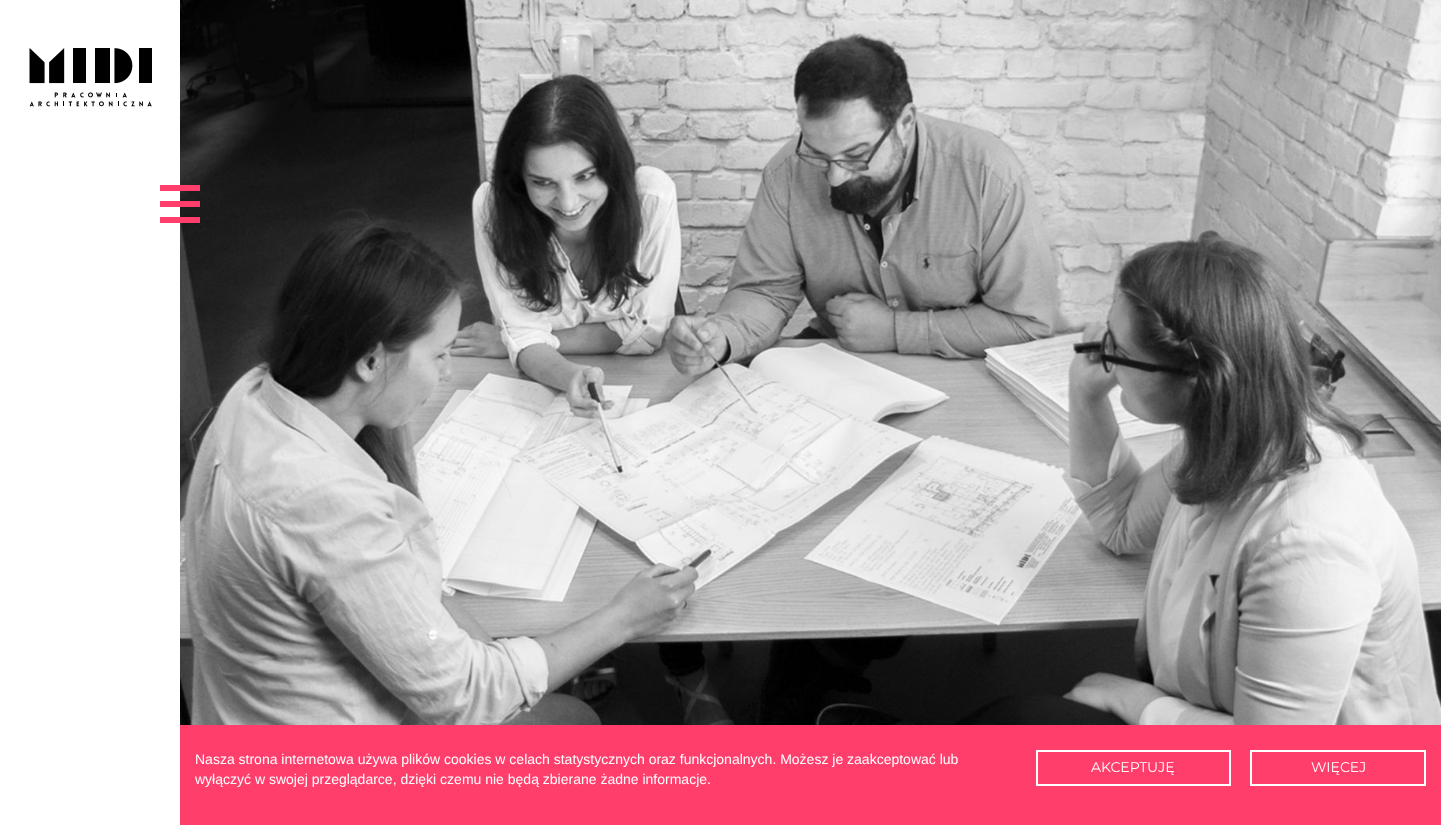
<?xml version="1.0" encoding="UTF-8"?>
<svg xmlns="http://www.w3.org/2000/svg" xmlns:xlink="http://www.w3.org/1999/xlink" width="1441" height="825">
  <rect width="100%" height="100%" fill="#ffffff" />
  <image x="29" y="48" width="123" height="59" xlink:href="image1.png" />
  <image x="180" y="0" width="1261" height="725" xlink:href="image2.png" />
  <rect x="160" y="185" width="40" height="6" fill="#ff3e6c" />
  <rect x="160" y="201" width="40" height="6" fill="#ff3e6c" />
  <rect x="160" y="217" width="40" height="6" fill="#ff3e6c" />
  <rect x="180" y="725" width="1261" height="100" fill="#ff3e6c" />
  <rect x="1037" y="751" width="193" height="34" fill="none" stroke="#ffffff" stroke-width="2" />
  <rect x="1251" y="751" width="174" height="34" fill="none" stroke="#ffffff" stroke-width="2" />
  <text x="195" y="764" style="font-family: Liberation Sans; font-size: 14px; fill: #ffffff">Nasza strona internetowa używa plików cookies w celach statystycznych oraz funkcjonalnych. Możesz je zaakceptować lub</text>
  <text x="195" y="784" style="font-family: Liberation Sans; font-size: 14px; fill: #ffffff">wyłączyć w swojej przeglądarce, dzięki czemu nie będą zbierane żadne informacje.</text>
  <text x="1091" y="772" style="font-family: Montserrat; font-size: 14px; fill: #ffffff">AKCEPTUJĘ</text>
  <text x="1311" y="772" style="font-family: Montserrat; font-size: 14px; fill: #ffffff">WIĘCEJ</text>
</svg>
